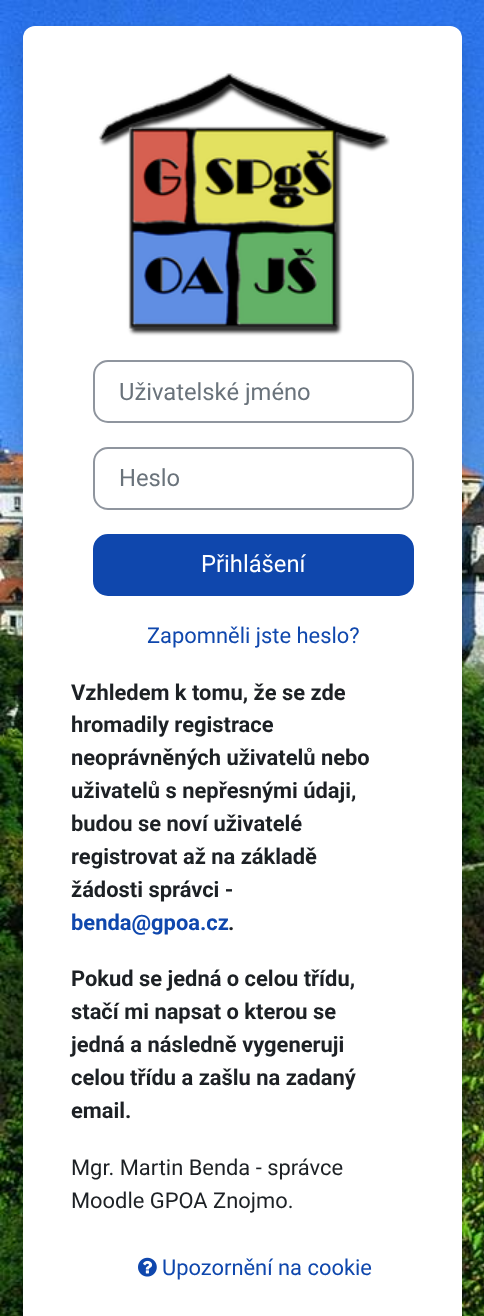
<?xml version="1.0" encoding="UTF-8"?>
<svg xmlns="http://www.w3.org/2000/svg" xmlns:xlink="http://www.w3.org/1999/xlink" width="484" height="1316">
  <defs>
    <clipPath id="clip1"><rect x="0" y="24" width="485" height="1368" /></clipPath>
  </defs>
  <rect width="100%" height="100%" fill="#ffffff" />
  <image x="0" y="0" width="484" height="1316" xlink:href="image1.png" />
  <g clip-path="url(#clip1)">
    <rect x="23" y="38" width="439" height="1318" rx="12" fill="#000000" fill-opacity="0.15" filter="blur(12px)" />
  </g>
  <rect x="23" y="26" width="439" height="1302" rx="12" fill="#ffffff" />
  <image x="98" y="73" width="292" height="263" xlink:href="image2.png" />
  <rect x="94" y="361" width="319" height="61" rx="14" fill="none" stroke="#8f959e" stroke-width="2" />
  <rect x="94" y="448" width="319" height="61" rx="14" fill="none" stroke="#8f959e" stroke-width="2" />
  <rect x="94" y="535" width="319" height="60" rx="14" fill="#0f47ad" stroke="#0f47ad" stroke-width="2" />
  <image x="138" y="1257" width="19" height="20" xlink:href="image3.png" />
  <text x="119" y="400" style="font-family: Roboto; font-size: 23.75px; fill: #6a737b">Uživatelské jméno</text>
  <text x="119" y="486" style="font-family: Roboto; font-size: 23.75px; fill: #6a737b">Heslo</text>
  <text x="201" y="572" style="font-family: Roboto; font-size: 23.75px; fill: #ffffff">Přihlášení</text>
  <text x="147" y="643" style="font-family: Roboto; font-size: 21.9px; fill: #0f47ad">Zapomněli jste heslo?</text>
  <text x="71" y="700" style="font-family: Roboto; font-size: 21.9px; font-weight: bold; fill: #1d2125">Vzhledem k tomu, že se zde</text>
  <text x="71" y="732" style="font-family: Roboto; font-size: 21.9px; font-weight: bold; fill: #1d2125">hromadily registrace</text>
  <text x="71" y="765" style="font-family: Roboto; font-size: 21.9px; font-weight: bold; fill: #1d2125">neoprávněných uživatelů nebo</text>
  <text x="71" y="798" style="font-family: Roboto; font-size: 21.9px; font-weight: bold; fill: #1d2125">uživatelů s nepřesnými údaji,</text>
  <text x="71" y="831" style="font-family: Roboto; font-size: 21.9px; font-weight: bold; fill: #1d2125">budou se noví uživatelé</text>
  <text x="71" y="864" style="font-family: Roboto; font-size: 21.9px; font-weight: bold; fill: #1d2125">registrovat až na základě</text>
  <text x="71" y="897" style="font-family: Roboto; font-size: 21.9px; font-weight: bold; fill: #1d2125">žádosti správci -</text>
  <text x="71" y="930" style="font-family: Roboto; font-size: 21.9px; font-weight: bold; fill: #0f47ad">benda@gpoa.cz</text>
  <text x="228" y="930" style="font-family: Roboto; font-size: 21.9px; font-weight: bold; fill: #1d2125">.</text>
  <text x="71" y="986" style="font-family: Roboto; font-size: 21.9px; font-weight: bold; fill: #1d2125">Pokud se jedná o celou třídu,</text>
  <text x="71" y="1019" style="font-family: Roboto; font-size: 21.9px; font-weight: bold; fill: #1d2125">stačí mi napsat o kterou se</text>
  <text x="71" y="1052" style="font-family: Roboto; font-size: 21.9px; font-weight: bold; fill: #1d2125">jedná a následně vygeneruji</text>
  <text x="71" y="1085" style="font-family: Roboto; font-size: 21.9px; font-weight: bold; fill: #1d2125">celou třídu a zašlu na zadaný</text>
  <text x="71" y="1118" style="font-family: Roboto; font-size: 21.9px; font-weight: bold; fill: #1d2125">email.</text>
  <text x="71" y="1175" style="font-family: Roboto; font-size: 21.9px; fill: #1d2125">Mgr. Martin Benda - správce</text>
  <text x="71" y="1208" style="font-family: Roboto; font-size: 21.9px; fill: #1d2125">Moodle GPOA Znojmo.</text>
  <text x="162" y="1275" style="font-family: Roboto; font-size: 21.9px; fill: #0f47ad">Upozornění na cookie</text>
</svg>
